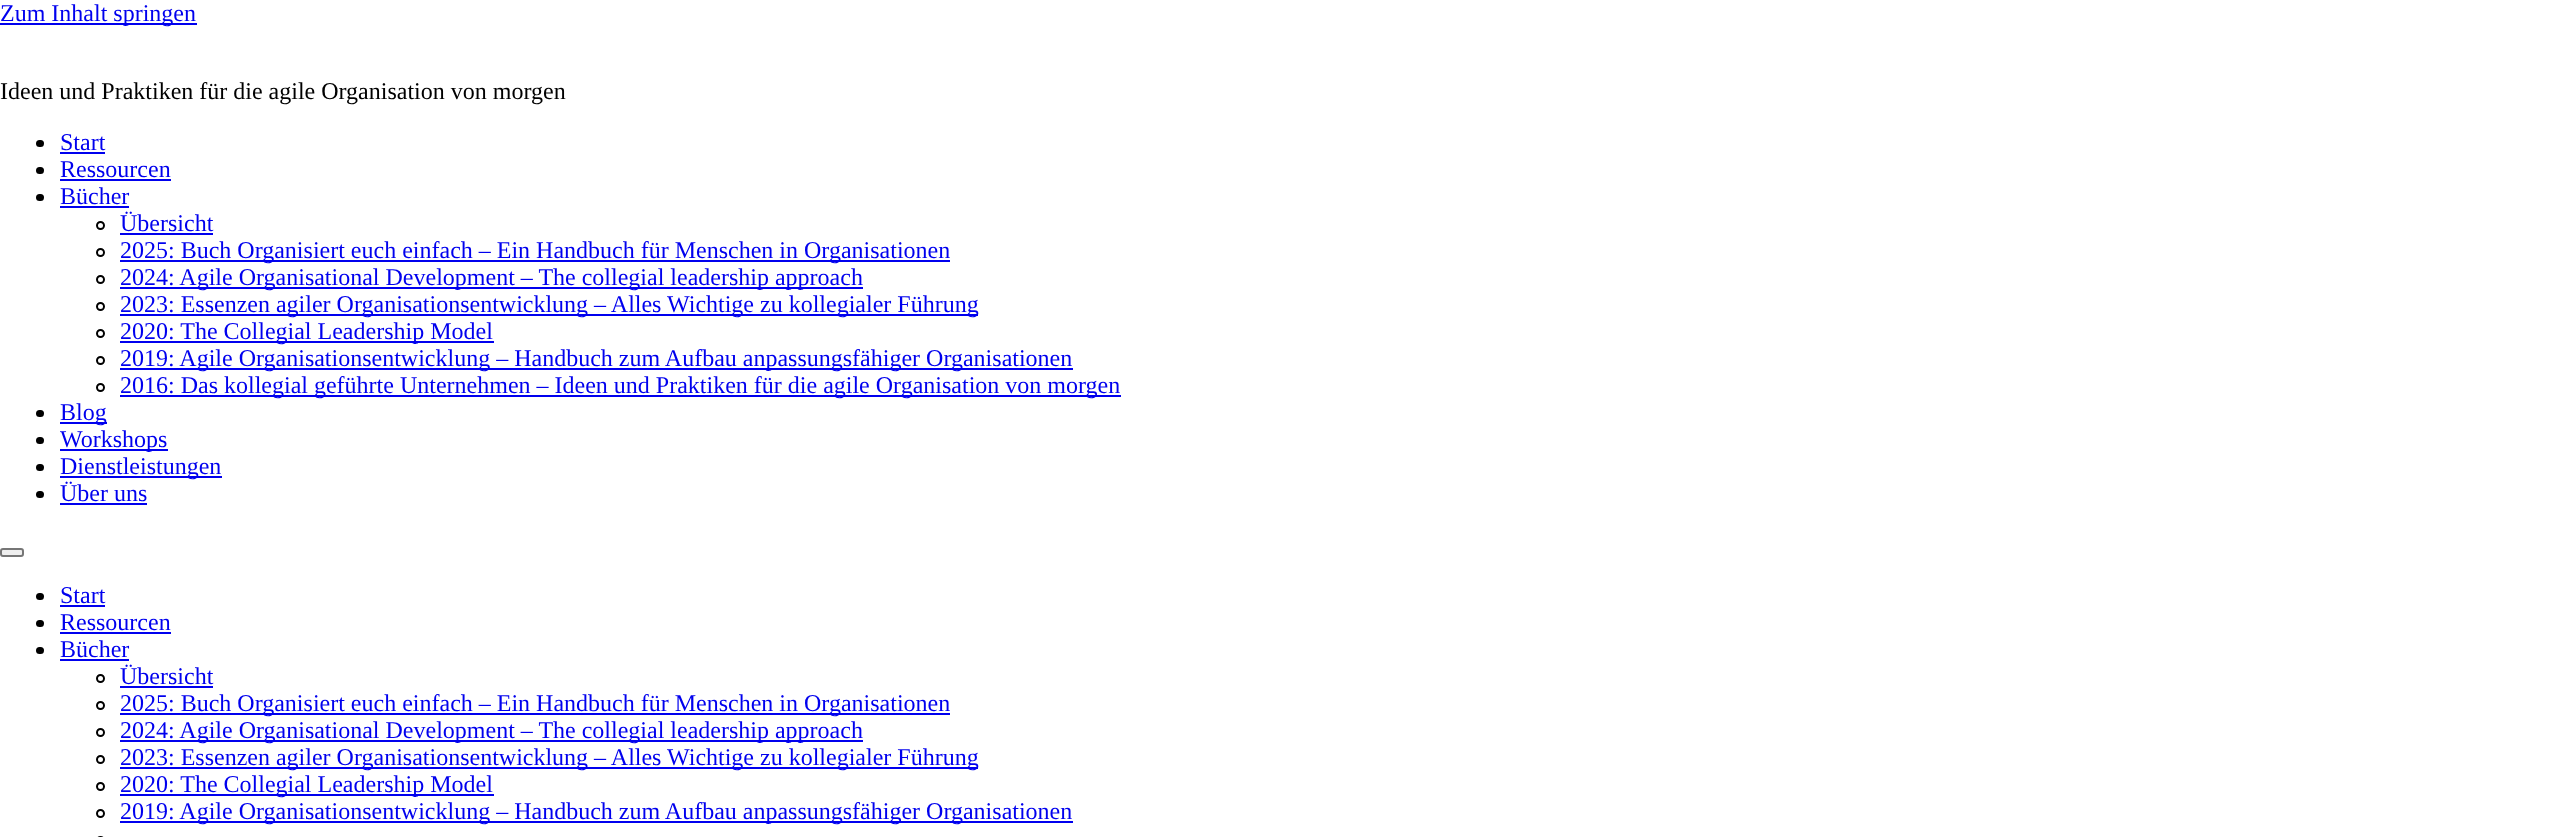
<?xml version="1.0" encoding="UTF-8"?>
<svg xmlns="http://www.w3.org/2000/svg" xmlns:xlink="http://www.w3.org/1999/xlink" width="2562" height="837">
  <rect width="100%" height="100%" fill="#ffffff" />
  <rect y="23" width="197" height="2" fill="#0000ee" />
  <rect x="36" y="140" width="8" height="7" rx="3.5" fill="#000000" />
  <rect x="60" y="152" width="45" height="2" fill="#0000ee" />
  <rect x="36" y="167" width="8" height="7" rx="3.5" fill="#000000" />
  <rect x="60" y="179" width="111" height="2" fill="#0000ee" />
  <rect x="36" y="194" width="8" height="7" rx="3.5" fill="#000000" />
  <rect x="60" y="206" width="69" height="2" fill="#0000ee" />
  <circle cx="100.5" cy="225.5" r="3.5" fill="none" stroke="#000000" stroke-width="2" />
  <rect x="120" y="233" width="93" height="2" fill="#0000ee" />
  <circle cx="100.5" cy="252.5" r="3.5" fill="none" stroke="#000000" stroke-width="2" />
  <rect x="120" y="260" width="830" height="2" fill="#0000ee" />
  <circle cx="100.5" cy="279.5" r="3.5" fill="none" stroke="#000000" stroke-width="2" />
  <rect x="120" y="287" width="743" height="2" fill="#0000ee" />
  <circle cx="100.5" cy="306.5" r="3.5" fill="none" stroke="#000000" stroke-width="2" />
  <rect x="120" y="314" width="858" height="2" fill="#0000ee" />
  <circle cx="100.5" cy="333.5" r="3.5" fill="none" stroke="#000000" stroke-width="2" />
  <rect x="120" y="341" width="374" height="2" fill="#0000ee" />
  <circle cx="100.5" cy="360.5" r="3.5" fill="none" stroke="#000000" stroke-width="2" />
  <rect x="120" y="368" width="953" height="2" fill="#0000ee" />
  <circle cx="100.5" cy="387.5" r="3.5" fill="none" stroke="#000000" stroke-width="2" />
  <rect x="120" y="395" width="1001" height="2" fill="#0000ee" />
  <rect x="36" y="410" width="8" height="7" rx="3.5" fill="#000000" />
  <rect x="60" y="422" width="47" height="2" fill="#0000ee" />
  <rect x="36" y="437" width="8" height="7" rx="3.5" fill="#000000" />
  <rect x="60" y="449" width="108" height="2" fill="#0000ee" />
  <rect x="36" y="464" width="8" height="7" rx="3.5" fill="#000000" />
  <rect x="60" y="476" width="162" height="2" fill="#0000ee" />
  <rect x="36" y="491" width="8" height="7" rx="3.5" fill="#000000" />
  <rect x="60" y="503" width="87" height="2" fill="#0000ee" />
  <rect x="1" y="549" width="22" height="7" rx="2" fill="#efefef" stroke="#767676" stroke-width="2" />
  <rect x="36" y="593" width="8" height="7" rx="3.5" fill="#000000" />
  <rect x="60" y="605" width="45" height="2" fill="#0000ee" />
  <rect x="36" y="620" width="8" height="7" rx="3.5" fill="#000000" />
  <rect x="60" y="632" width="111" height="2" fill="#0000ee" />
  <rect x="36" y="647" width="8" height="7" rx="3.5" fill="#000000" />
  <rect x="60" y="659" width="69" height="2" fill="#0000ee" />
  <circle cx="100.5" cy="678.5" r="3.5" fill="none" stroke="#000000" stroke-width="2" />
  <rect x="120" y="686" width="93" height="2" fill="#0000ee" />
  <circle cx="100.5" cy="705.5" r="3.5" fill="none" stroke="#000000" stroke-width="2" />
  <rect x="120" y="713" width="830" height="2" fill="#0000ee" />
  <circle cx="100.5" cy="732.5" r="3.5" fill="none" stroke="#000000" stroke-width="2" />
  <rect x="120" y="740" width="743" height="2" fill="#0000ee" />
  <circle cx="100.5" cy="759.5" r="3.5" fill="none" stroke="#000000" stroke-width="2" />
  <rect x="120" y="767" width="858" height="2" fill="#0000ee" />
  <circle cx="100.5" cy="786.5" r="3.5" fill="none" stroke="#000000" stroke-width="2" />
  <rect x="120" y="794" width="374" height="2" fill="#0000ee" />
  <circle cx="100.5" cy="813.5" r="3.5" fill="none" stroke="#000000" stroke-width="2" />
  <rect x="120" y="821" width="953" height="2" fill="#0000ee" />
  <rect x="97" y="837" width="7" height="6" rx="3.5" fill="none" stroke="#000000" stroke-width="2" />
  <text x="0" y="21" style="font-family: Liberation Serif; font-size: 24px; fill: #0000ee">Zum Inhalt springen</text>
  <text x="0" y="99" style="font-family: Liberation Serif; font-size: 24px; fill: #000000">Ideen und Praktiken für die agile Organisation von morgen</text>
  <text x="60" y="150" style="font-family: Liberation Serif; font-size: 24px; fill: #0000ee">Start</text>
  <text x="60" y="177" style="font-family: Liberation Serif; font-size: 24px; fill: #0000ee">Ressourcen</text>
  <text x="60" y="204" style="font-family: Liberation Serif; font-size: 24px; fill: #0000ee">Bücher</text>
  <text x="120" y="231" style="font-family: Liberation Serif; font-size: 24px; fill: #0000ee">Übersicht</text>
  <text x="120" y="258" style="font-family: Liberation Serif; font-size: 24px; fill: #0000ee">2025: Buch Organisiert euch einfach – Ein Handbuch für Menschen in Organisationen</text>
  <text x="120" y="285" style="font-family: Liberation Serif; font-size: 24px; fill: #0000ee">2024: Agile Organisational Development – The collegial leadership approach</text>
  <text x="120" y="312" style="font-family: Liberation Serif; font-size: 24px; fill: #0000ee">2023: Essenzen agiler Organisationsentwicklung – Alles Wichtige zu kollegialer Führung</text>
  <text x="120" y="339" style="font-family: Liberation Serif; font-size: 24px; fill: #0000ee">2020: The Collegial Leadership Model</text>
  <text x="120" y="366" style="font-family: Liberation Serif; font-size: 24px; fill: #0000ee">2019: Agile Organisationsentwicklung – Handbuch zum Aufbau anpassungsfähiger Organisationen</text>
  <text x="120" y="393" style="font-family: Liberation Serif; font-size: 24px; fill: #0000ee">2016: Das kollegial geführte Unternehmen – Ideen und Praktiken für die agile Organisation von morgen</text>
  <text x="60" y="420" style="font-family: Liberation Serif; font-size: 24px; fill: #0000ee">Blog</text>
  <text x="60" y="447" style="font-family: Liberation Serif; font-size: 24px; fill: #0000ee">Workshops</text>
  <text x="60" y="474" style="font-family: Liberation Serif; font-size: 24px; fill: #0000ee">Dienstleistungen</text>
  <text x="60" y="501" style="font-family: Liberation Serif; font-size: 24px; fill: #0000ee">Über uns</text>
  <text x="60" y="603" style="font-family: Liberation Serif; font-size: 24px; fill: #0000ee">Start</text>
  <text x="60" y="630" style="font-family: Liberation Serif; font-size: 24px; fill: #0000ee">Ressourcen</text>
  <text x="60" y="657" style="font-family: Liberation Serif; font-size: 24px; fill: #0000ee">Bücher</text>
  <text x="120" y="684" style="font-family: Liberation Serif; font-size: 24px; fill: #0000ee">Übersicht</text>
  <text x="120" y="711" style="font-family: Liberation Serif; font-size: 24px; fill: #0000ee">2025: Buch Organisiert euch einfach – Ein Handbuch für Menschen in Organisationen</text>
  <text x="120" y="738" style="font-family: Liberation Serif; font-size: 24px; fill: #0000ee">2024: Agile Organisational Development – The collegial leadership approach</text>
  <text x="120" y="765" style="font-family: Liberation Serif; font-size: 24px; fill: #0000ee">2023: Essenzen agiler Organisationsentwicklung – Alles Wichtige zu kollegialer Führung</text>
  <text x="120" y="792" style="font-family: Liberation Serif; font-size: 24px; fill: #0000ee">2020: The Collegial Leadership Model</text>
  <text x="120" y="819" style="font-family: Liberation Serif; font-size: 24px; fill: #0000ee">2019: Agile Organisationsentwicklung – Handbuch zum Aufbau anpassungsfähiger Organisationen</text>
</svg>
